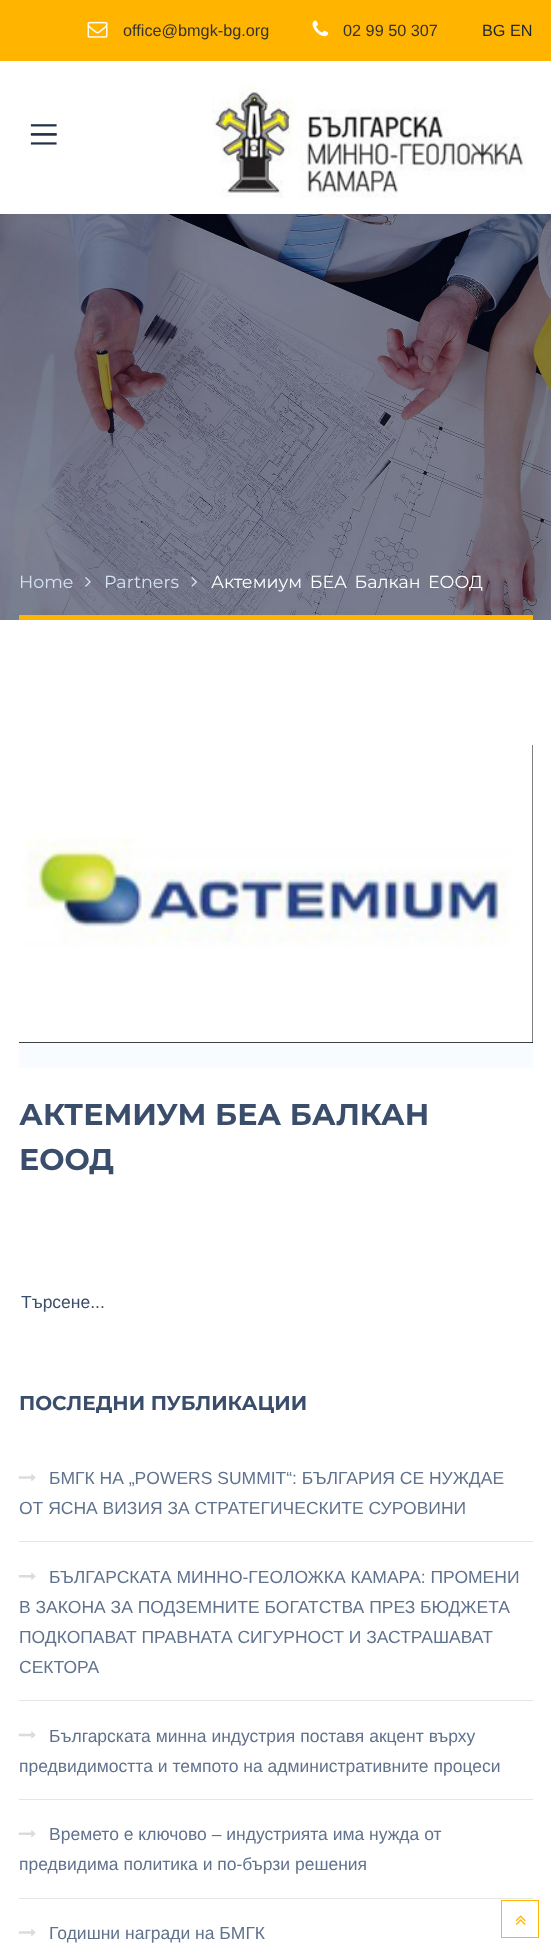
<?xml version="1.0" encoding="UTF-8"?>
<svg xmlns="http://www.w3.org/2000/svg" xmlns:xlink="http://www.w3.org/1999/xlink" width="551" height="1950">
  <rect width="100%" height="100%" fill="#ffffff" />
  <rect width="551" height="61" fill="#ffb400" />
  <image x="87" y="21" width="21" height="17" xlink:href="image1.png" />
  <image x="312" y="20" width="17" height="17" xlink:href="image2.png" />
  <image x="30" y="124" width="27" height="21" xlink:href="image3.png" />
  <image x="212" y="84" width="314" height="114" xlink:href="image4.png" />
  <image x="0" y="214" width="551" height="406" xlink:href="image5.png" />
  <rect x="19" y="615" width="514" height="5" fill="#ffb400" />
  <image x="85" y="577" width="6" height="10" xlink:href="image6.png" />
  <image x="191" y="577" width="6" height="10" xlink:href="image7.png" />
  <rect x="19" y="745" width="514" height="298" fill="#000000" />
  <image x="19" y="745" width="514" height="298" xlink:href="image8.png" />
  <rect x="19" y="1043" width="514" height="25" fill="#f8fbff" />
  <rect x="19" y="1541" width="514" height="1" fill="#e5e5e5" />
  <image x="18" y="1474" width="18" height="7" xlink:href="image9.png" />
  <rect x="19" y="1700" width="514" height="1" fill="#e5e5e5" />
  <image x="18" y="1572" width="18" height="8" xlink:href="image10.png" />
  <rect x="19" y="1799" width="514" height="1" fill="#e5e5e5" />
  <image x="18" y="1731" width="18" height="8" xlink:href="image11.png" />
  <rect x="19" y="1898" width="514" height="1" fill="#e5e5e5" />
  <image x="18" y="1830" width="18" height="8" xlink:href="image12.png" />
  <image x="18" y="1929" width="18" height="7" xlink:href="image9.png" />
  <rect x="501.5" y="1900.5" width="37" height="37" fill="none" stroke="#ffb400" />
  <image x="515" y="1915" width="11" height="10" xlink:href="image13.png" />
  <text x="123" y="36" style="font-family: Liberation Sans; font-size: 16.25px; fill: #333333">office@bmgk-bg.org</text>
  <text x="343" y="36" style="font-family: Liberation Sans; font-size: 16.25px; fill: #333333">02 99 50 307</text>
  <text x="482" y="36" style="font-family: Liberation Sans; font-size: 16.25px; fill: #1a2638">BG EN</text>
  <text x="19" y="588" style="font-family: Montserrat; font-size: 17.5px; fill: #d4e3ee">Home</text>
  <text x="104" y="588" style="font-family: Montserrat; font-size: 17.5px; fill: #d4e3ee">Partners</text>
  <text x="211" y="588" word-spacing="3" style="font-family: Montserrat; font-size: 17.5px; fill: #ffffff">Актемиум БЕА Балкан ЕООД</text>
  <text x="19" y="1125" style="font-family: Montserrat; font-size: 30px; font-weight: bold; fill: #3a4d6a">АКТЕМИУМ БЕА БАЛКАН</text>
  <text x="19" y="1170" style="font-family: Montserrat; font-size: 30px; font-weight: bold; fill: #3a4d6a">ЕООД</text>
  <text x="21" y="1308" style="font-family: Liberation Sans; font-size: 17.5px; fill: #3a4d6a">Търсене...</text>
  <text x="19" y="1410" style="font-family: Montserrat; font-size: 20px; font-weight: bold; fill: #3a4d6a">ПОСЛЕДНИ ПУБЛИКАЦИИ</text>
  <text x="49" y="1484" style="font-family: Liberation Sans; font-size: 17.5px; fill: #61728d">БМГК НА „POWERS SUMMIT“: БЪЛГАРИЯ СЕ НУЖДАЕ</text>
  <text x="19" y="1514" style="font-family: Liberation Sans; font-size: 17.5px; fill: #61728d">ОТ ЯСНА ВИЗИЯ ЗА СТРАТЕГИЧЕСКИТЕ СУРОВИНИ</text>
  <text x="49" y="1583" style="font-family: Liberation Sans; font-size: 17.5px; fill: #61728d">БЪЛГАРСКАТА МИННО-ГЕОЛОЖКА КАМАРА: ПРОМЕНИ</text>
  <text x="19" y="1613" style="font-family: Liberation Sans; font-size: 17.5px; fill: #61728d">В ЗАКОНА ЗА ПОДЗЕМНИТЕ БОГАТСТВА ПРЕЗ БЮДЖЕТА</text>
  <text x="19" y="1643" style="font-family: Liberation Sans; font-size: 17.5px; fill: #61728d">ПОДКОПАВАТ ПРАВНАТА СИГУРНОСТ И ЗАСТРАШАВАТ</text>
  <text x="19" y="1673" style="font-family: Liberation Sans; font-size: 17.5px; fill: #61728d">СЕКТОРА</text>
  <text x="49" y="1742" style="font-family: Liberation Sans; font-size: 17.5px; fill: #61728d">Българската минна индустрия поставя акцент върху</text>
  <text x="19" y="1772" style="font-family: Liberation Sans; font-size: 17.5px; fill: #61728d">предвидимостта и темпото на административните процеси</text>
  <text x="49" y="1840" style="font-family: Liberation Sans; font-size: 17.5px; fill: #61728d">Времето е ключово – индустрията има нужда от</text>
  <text x="19" y="1870" style="font-family: Liberation Sans; font-size: 17.5px; fill: #61728d">предвидима политика и по-бързи решения</text>
  <text x="49" y="1939" style="font-family: Liberation Sans; font-size: 17.5px; fill: #61728d">Годишни награди на БМГК</text>
</svg>
